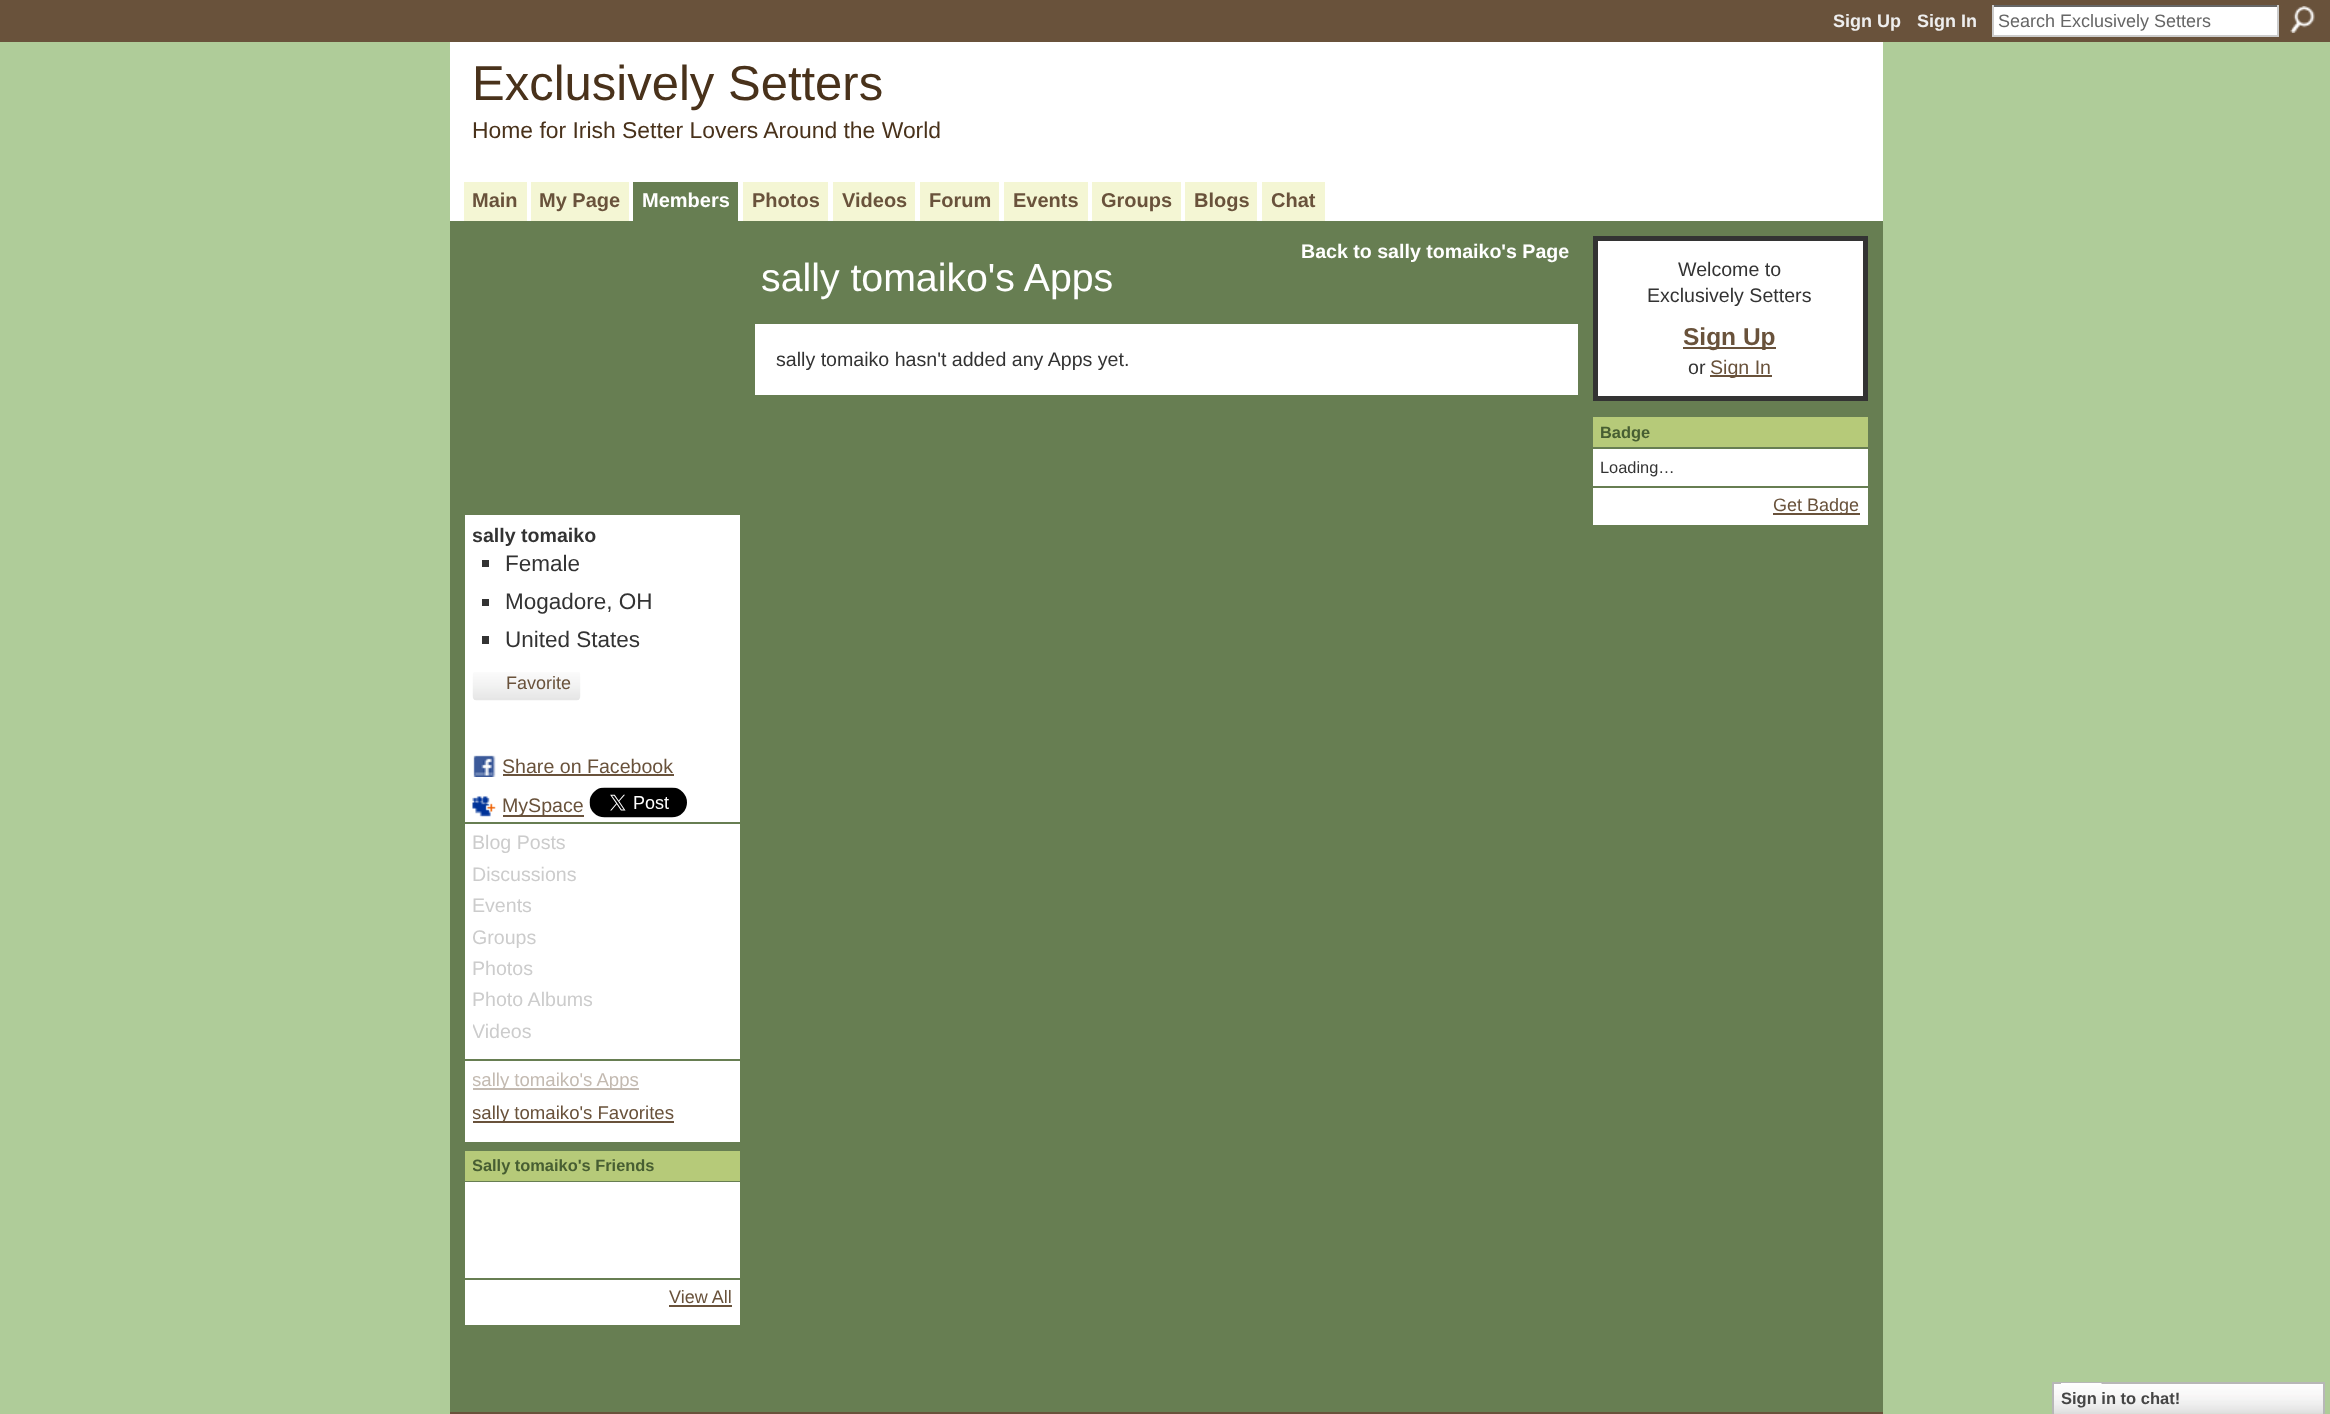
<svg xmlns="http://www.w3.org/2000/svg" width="2330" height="1414">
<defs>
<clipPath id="clip1"><rect x="473" y="522" width="259" height="26"/></clipPath>
<clipPath id="clip2"><rect x="473" y="926" width="259" height="24"/></clipPath>
<clipPath id="clip3"><rect x="473" y="1020" width="259" height="24"/></clipPath>
<clipPath id="clip4"><rect x="473" y="1068" width="259" height="24"/></clipPath>
<clipPath id="clip5"><rect x="473" y="1101" width="259" height="24"/></clipPath>
<clipPath id="clip6"><rect x="473" y="1155" width="181" height="21"/></clipPath>
<clipPath id="clip7"><rect x="1601" y="422" width="49" height="21"/></clipPath>
</defs>
<rect width="100%" height="100%" fill="#afcc99"/>
<rect width="2330" height="42" fill="#69523b"/>
<text x="1833" y="27" style="font-family:Liberation Sans;font-size:18px;font-weight:bold;fill:#eee">Sign Up</text>
<text x="1917" y="27" style="font-family:Liberation Sans;font-size:18px;font-weight:bold;fill:#eee">Sign In</text>
<rect x="1994" y="7" width="283" height="28" fill="#fff"/>
<rect x="1992" y="5" width="287" height="2" fill="#666"/>
<rect x="2277" y="5" width="2" height="31" fill="#ccc"/>
<rect x="1992" y="35" width="287" height="2" fill="#ccc"/>
<rect x="1992" y="5" width="2" height="31" fill="#ccc"/>
<text x="1998" y="27" style="font-family:Liberation Sans;font-size:18px;fill:#666">Search Exclusively Setters</text>
<image x="2290" y="6" width="25" height="27" href="media/1.png"/>
<rect x="450" y="42" width="1433" height="179" fill="#fff"/>
<text x="472" y="100" style="font-family:Liberation Sans;font-size:49px;fill:#49321b">Exclusively Setters</text>
<text x="472" y="138" style="font-family:Liberation Sans;font-size:22.9px;fill:#49321b">Home for Irish Setter Lovers Around the World</text>
<rect x="464" y="182" width="63" height="39" fill="#f4f6d4"/>
<text x="472" y="207" style="font-family:Liberation Sans;font-size:20px;font-weight:bold;fill:#69523b">Main</text>
<rect x="531" y="182" width="98" height="39" fill="#f4f6d4"/>
<text x="539" y="207" style="font-family:Liberation Sans;font-size:20px;font-weight:bold;fill:#69523b">My Page</text>
<rect x="633" y="182" width="105" height="39" fill="#677e52"/>
<text x="642" y="207" style="font-family:Liberation Sans;font-size:20px;font-weight:bold;fill:#fff">Members</text>
<rect x="743" y="182" width="85" height="39" fill="#f4f6d4"/>
<text x="752" y="207" style="font-family:Liberation Sans;font-size:20px;font-weight:bold;fill:#69523b">Photos</text>
<rect x="833" y="182" width="82" height="39" fill="#f4f6d4"/>
<text x="842" y="207" style="font-family:Liberation Sans;font-size:20px;font-weight:bold;fill:#69523b">Videos</text>
<rect x="920" y="182" width="79" height="39" fill="#f4f6d4"/>
<text x="929" y="207" style="font-family:Liberation Sans;font-size:20px;font-weight:bold;fill:#69523b">Forum</text>
<rect x="1004" y="182" width="84" height="39" fill="#f4f6d4"/>
<text x="1013" y="207" style="font-family:Liberation Sans;font-size:20px;font-weight:bold;fill:#69523b">Events</text>
<rect x="1092" y="182" width="89" height="39" fill="#f4f6d4"/>
<text x="1101" y="207" style="font-family:Liberation Sans;font-size:20px;font-weight:bold;fill:#69523b">Groups</text>
<rect x="1185" y="182" width="72" height="39" fill="#f4f6d4"/>
<text x="1194" y="207" style="font-family:Liberation Sans;font-size:20px;font-weight:bold;fill:#69523b">Blogs</text>
<rect x="1262" y="182" width="63" height="39" fill="#f4f6d4"/>
<text x="1271" y="207" style="font-family:Liberation Sans;font-size:20px;font-weight:bold;fill:#69523b">Chat</text>
<rect x="450" y="221" width="1433" height="1191" fill="#677e52"/>
<text x="1301" y="258" style="font-family:Liberation Sans;font-size:19.6px;font-weight:bold;fill:#fff">Back to sally tomaiko's Page</text>
<text x="761" y="291" style="font-family:Liberation Sans;font-size:39.25px;fill:#fff">sally tomaiko's Apps</text>
<rect x="755" y="324" width="823" height="71" fill="#fff"/>
<text x="776" y="366" style="font-family:Liberation Sans;font-size:19.6px;fill:#333">sally tomaiko hasn't added any Apps yet.</text>
<rect x="465" y="515" width="275" height="307" fill="#fff"/>
<g clip-path="url(#clip1)">
<text x="472" y="542" style="font-family:Liberation Sans;font-size:19.6px;font-weight:bold;fill:#333">sally tomaiko</text>
</g>
<rect x="482" y="560" width="7" height="7" fill="#333"/>
<text x="505" y="571" style="font-family:Liberation Sans;font-size:22.5px;fill:#333">Female</text>
<rect x="482" y="599" width="7" height="7" fill="#333"/>
<text x="505" y="609" style="font-family:Liberation Sans;font-size:22.5px;fill:#333">Mogadore, OH</text>
<rect x="482" y="636" width="7" height="8" fill="#333"/>
<text x="505" y="647" style="font-family:Liberation Sans;font-size:22.5px;fill:#333">United States</text>
<image x="472" y="672" width="109" height="29" href="media/2.png"/>
<text x="506" y="689" style="font-family:Liberation Sans;font-size:18px;fill:#69523b">Favorite</text>
<image x="473" y="755" width="23" height="22" href="media/3.png"/>
<text x="502" y="773" style="font-family:Liberation Sans;font-size:19.6px;fill:#69523b">Share on Facebook</text>
<rect x="503" y="774" width="171" height="2" fill="#69523b"/>
<image x="472" y="796" width="24" height="21" href="media/4.png"/>
<rect x="503" y="815" width="81" height="2" fill="#69523b"/>
<text x="502" y="812" style="font-family:Liberation Sans;font-size:19.6px;fill:#69523b">MySpace</text>
<image x="589" y="787" width="98" height="31" href="media/5.png"/>
<rect x="465" y="824" width="275" height="235" fill="#fff"/>
<text x="472" y="849" style="font-family:Liberation Sans;font-size:19.6px;fill:#ccc">Blog Posts</text>
<text x="472" y="881" style="font-family:Liberation Sans;font-size:19.6px;fill:#ccc">Discussions</text>
<text x="472" y="912" style="font-family:Liberation Sans;font-size:19.6px;fill:#ccc">Events</text>
<g clip-path="url(#clip2)">
<text x="472" y="944" style="font-family:Liberation Sans;font-size:19.6px;fill:#ccc">Groups</text>
</g>
<text x="472" y="975" style="font-family:Liberation Sans;font-size:19.6px;fill:#ccc">Photos</text>
<text x="472" y="1006" style="font-family:Liberation Sans;font-size:19.6px;fill:#ccc">Photo Albums</text>
<g clip-path="url(#clip3)">
<text x="472" y="1038" style="font-family:Liberation Sans;font-size:19.6px;fill:#ccc">Videos</text>
</g>
<rect x="465" y="1061" width="275" height="81" fill="#fff"/>
<rect x="473" y="1088" width="166" height="2" fill="#c3bab1"/>
<g clip-path="url(#clip4)">
<text x="472" y="1086" style="font-family:Liberation Sans;font-size:18.6px;fill:#c3bab1">sally tomaiko's Apps</text>
</g>
<rect x="473" y="1121" width="201" height="2" fill="#69523b"/>
<g clip-path="url(#clip5)">
<text x="472" y="1119" style="font-family:Liberation Sans;font-size:18.6px;fill:#69523b">sally tomaiko's Favorites</text>
</g>
<rect x="465" y="1151" width="275" height="30" fill="#b6ca79"/>
<g clip-path="url(#clip6)">
<text x="472" y="1171" style="font-family:Liberation Sans;font-size:16.4px;font-weight:bold;fill:#475e32">Sally tomaiko's Friends</text>
</g>
<rect x="465" y="1182" width="275" height="96" fill="#fff"/>
<rect x="465" y="1280" width="275" height="45" fill="#fff"/>
<text x="669" y="1303" style="font-family:Liberation Sans;font-size:18px;fill:#69523b">View All</text>
<rect x="669" y="1305" width="63" height="2" fill="#69523b"/>
<rect x="1595.5" y="238.5" width="270" height="160" fill="#fff" stroke="#333" stroke-width="5"/>
<text x="1678" y="276" style="font-family:Liberation Sans;font-size:19.6px;fill:#333">Welcome to</text>
<text x="1647" y="302" style="font-family:Liberation Sans;font-size:19.6px;fill:#333">Exclusively Setters</text>
<rect x="1683" y="347" width="93" height="2" fill="#69523b"/>
<text x="1683" y="345" style="font-family:Liberation Sans;font-size:24.5px;font-weight:bold;fill:#69523b">Sign Up</text>
<text x="1688" y="374" style="font-family:Liberation Sans;font-size:19.6px;fill:#333">or</text>
<rect x="1710" y="375" width="62" height="2" fill="#69523b"/>
<text x="1710" y="374" style="font-family:Liberation Sans;font-size:19.6px;fill:#69523b">Sign In</text>
<rect x="1593" y="417" width="275" height="30" fill="#b6ca79"/>
<g clip-path="url(#clip7)">
<text x="1600" y="438" style="font-family:Liberation Sans;font-size:16.4px;font-weight:bold;fill:#475e32">Badge</text>
</g>
<rect x="1593" y="449" width="275" height="37" fill="#fff"/>
<text x="1600" y="473" style="font-family:Liberation Sans;font-size:16.4px;fill:#333">Loading…</text>
<rect x="1593" y="488" width="275" height="37" fill="#fff"/>
<rect x="1773" y="513" width="87" height="2" fill="#69523b"/>
<text x="1773" y="511" style="font-family:Liberation Sans;font-size:18px;fill:#69523b">Get Badge</text>
<rect x="450" y="1412" width="1433" height="2" fill="#69523b"/>
<image x="2054" y="1384" width="269" height="30" href="media/6.png"/>
<rect x="2053" y="1383" width="271" height="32" fill="none" stroke="#b7b7b7" stroke-width="2"/>
<image x="2061" y="1383" width="41" height="31" href="media/7.png"/>
<text x="2061" y="1404" style="font-family:Liberation Sans;font-size:16.5px;font-weight:bold;fill:#454545">Sign in to chat!</text>
</svg>
